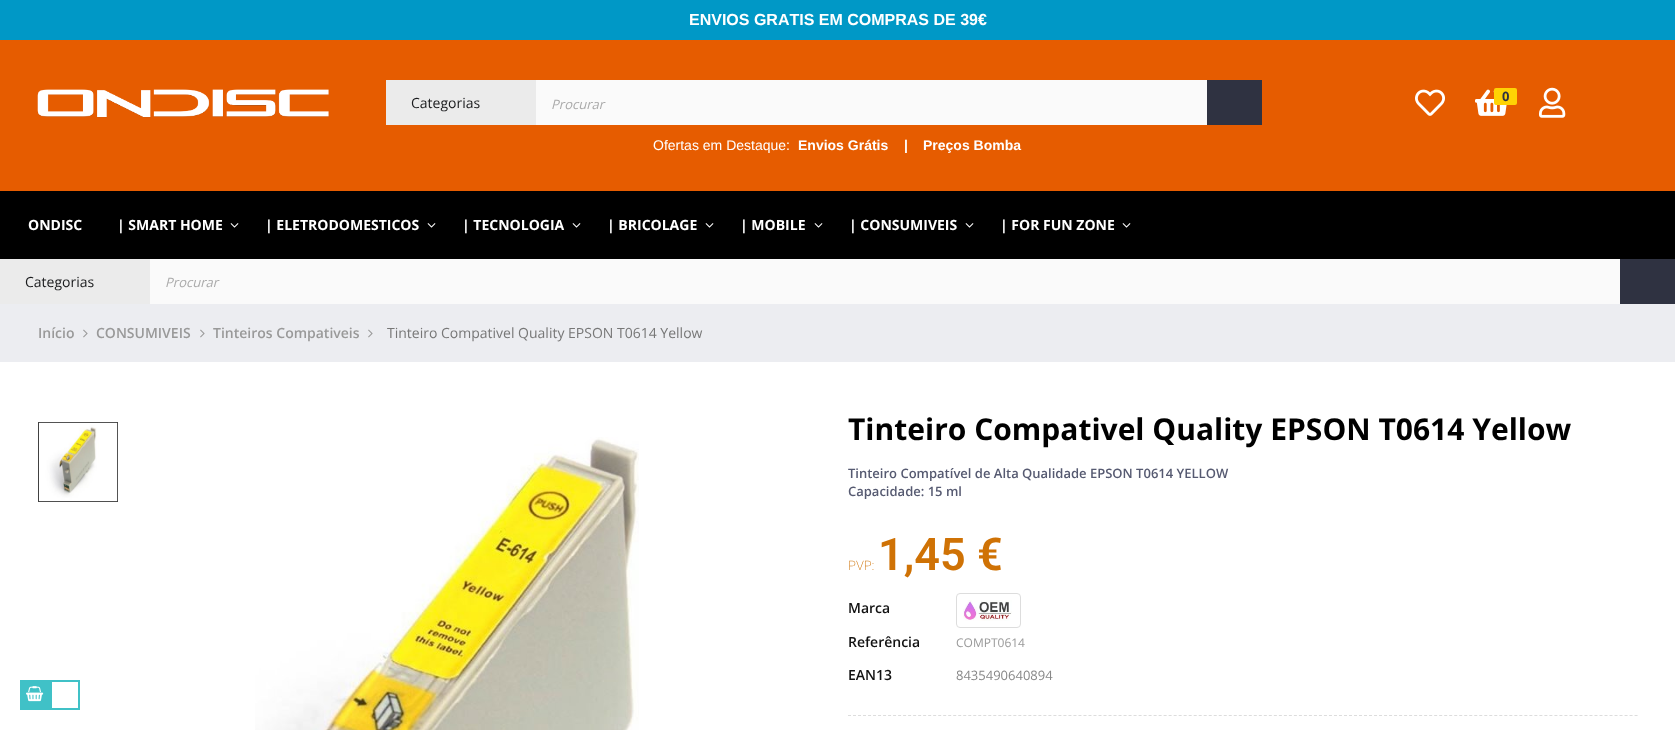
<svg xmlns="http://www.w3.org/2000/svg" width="1675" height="730">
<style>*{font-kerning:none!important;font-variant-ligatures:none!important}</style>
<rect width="100%" height="100%" fill="#fff"/>
<rect width="1675" height="40" fill="#0098c6"/>
<text x="689" y="25" style="font-family:Liberation Sans;font-size:16px;font-weight:bold;fill:#fff">ENVIOS GRATIS EM COMPRAS DE 39€</text>
<rect y="40" width="1675" height="151" fill="#e65c00"/>
<image x="37" y="89" width="292" height="29" href="media/1.png"/>
<rect x="386" y="80" width="150" height="45" fill="#ebebeb"/>
<text x="411" y="108" style="font-family:Open Sans;font-size:14px;fill:#191a1c">Categorias</text>
<rect x="536" y="80" width="671" height="45" fill="#fafafa"/>
<text x="551" y="109" style="font-family:Open Sans;font-size:13px;font-style:italic;fill:#aaa">Procurar</text>
<rect x="1207" y="80" width="55" height="45" fill="#2f3241"/>
<image x="1415" y="89" width="30" height="27" href="media/2.png"/>
<image x="1475" y="89" width="32" height="27" href="media/3.png"/>
<rect x="1494" y="88" width="23" height="17" rx="2" fill="#ffd304"/>
<text x="1502" y="101" style="font-family:Open Sans;font-size:13px;font-weight:bold;fill:#2f3241">0</text>
<image x="1539" y="87" width="27" height="31" href="media/4.png"/>
<text x="653" y="150" style="font-family:Liberation Sans;font-size:14px;fill:#fff">Ofertas em Destaque:</text>
<text x="798" y="150" style="font-family:Liberation Sans;font-size:14px;font-weight:bold;fill:#fff">Envios Grátis</text>
<text x="904" y="150" style="font-family:Liberation Sans;font-size:14px;font-weight:bold;fill:#fff">|</text>
<text x="923" y="150" style="font-family:Liberation Sans;font-size:14px;font-weight:bold;fill:#fff">Preços Bomba</text>
<rect y="191" width="1675" height="68" fill="#000"/>
<text x="28" y="230" style="font-family:Open Sans;font-size:14px;font-weight:bold;fill:#fff">ONDISC</text>
<text x="117" y="230" style="font-family:Open Sans;font-size:14px;font-weight:bold;fill:#fff">| SMART HOME</text>
<image x="230" y="223" width="9" height="5" href="media/5.png"/>
<text x="265" y="230" style="font-family:Open Sans;font-size:14px;font-weight:bold;fill:#fff">| ELETRODOMESTICOS</text>
<image x="427" y="223" width="9" height="5" href="media/5.png"/>
<text x="462" y="230" style="font-family:Open Sans;font-size:14px;font-weight:bold;fill:#fff">| TECNOLOGIA</text>
<image x="572" y="223" width="9" height="5" href="media/5.png"/>
<text x="607" y="230" style="font-family:Open Sans;font-size:14px;font-weight:bold;fill:#fff">| BRICOLAGE</text>
<image x="705" y="223" width="9" height="5" href="media/5.png"/>
<text x="740" y="230" style="font-family:Open Sans;font-size:14px;font-weight:bold;fill:#fff">| MOBILE</text>
<image x="814" y="223" width="9" height="5" href="media/5.png"/>
<text x="849" y="230" style="font-family:Open Sans;font-size:14px;font-weight:bold;fill:#fff">| CONSUMIVEIS</text>
<image x="965" y="223" width="9" height="5" href="media/5.png"/>
<text x="1000" y="230" style="font-family:Open Sans;font-size:14px;font-weight:bold;fill:#fff">| FOR FUN ZONE</text>
<image x="1122" y="223" width="9" height="5" href="media/5.png"/>
<rect y="259" width="150" height="45" fill="#ebebeb"/>
<text x="25" y="287" style="font-family:Open Sans;font-size:14px;fill:#191a1c">Categorias</text>
<rect x="150" y="259" width="1470" height="45" fill="#fafafa"/>
<text x="165" y="287" style="font-family:Open Sans;font-size:13px;font-style:italic;fill:#aaa">Procurar</text>
<rect x="1620" y="259" width="55" height="45" fill="#2f3241"/>
<rect y="304" width="1675" height="58" fill="#ecedf1"/>
<text x="38" y="338" style="font-family:Open Sans;font-size:14px;font-weight:600;fill:#999">Início</text>
<image x="83" y="329" width="5" height="9" href="media/6.png"/>
<text x="96" y="338" style="font-family:Open Sans;font-size:14px;font-weight:600;fill:#999">CONSUMIVEIS</text>
<image x="200" y="329" width="5" height="9" href="media/6.png"/>
<text x="213" y="338" style="font-family:Open Sans;font-size:14px;font-weight:600;fill:#999">Tinteiros Compativeis</text>
<image x="368" y="329" width="5" height="9" href="media/6.png"/>
<text x="387" y="338" style="font-family:Open Sans;font-size:14px;fill:#777">Tinteiro Compativel Quality EPSON T0614 Yellow</text>
<rect x="38.5" y="422.5" width="79" height="79" fill="none" stroke="#414141"/>
<image x="39" y="422" width="79" height="80" href="media/7.png"/>
<image x="255" y="437" width="384" height="293" href="media/8.png"/>
<text x="848" y="440" style="font-family:Open Sans;font-size:30px;font-weight:bold;fill:#000">Tinteiro Compativel Quality EPSON T0614 Yellow</text>
<text x="848" y="478" style="font-family:Open Sans;font-size:13px;font-weight:600;fill:#565a71">Tinteiro Compatível de Alta Qualidade EPSON T0614 YELLOW</text>
<text x="848" y="496" style="font-family:Open Sans;font-size:13px;font-weight:600;fill:#565a71">Capacidade: 15 ml</text>
<text x="848" y="570" style="font-family:Roboto;font-size:13px;font-weight:200;fill:#cf7205">PVP:</text>
<text x="878" y="570" style="font-family:Roboto;font-size:45px;font-weight:600;fill:#cf7205">1,45 €</text>
<rect x="956.5" y="593.5" width="64" height="34" rx="3.5" fill="none" stroke="#ddd"/>
<text x="848" y="613" style="font-family:Open Sans;font-size:14px;font-weight:600;fill:#121212">Marca</text>
<image x="963" y="600" width="49" height="21" href="media/9.png"/>
<text x="848" y="647" style="font-family:Open Sans;font-size:14px;font-weight:600;fill:#121212">Referência</text>
<text x="956" y="647" style="font-family:Open Sans;font-size:12px;fill:#999">COMPT0614</text>
<text x="848" y="680" style="font-family:Open Sans;font-size:14px;font-weight:600;fill:#121212">EAN13</text>
<text x="956" y="680" style="font-family:Open Sans;font-size:13px;fill:#878787">8435490640894</text>
<path d="M848 715.5h790" fill="none" stroke="#ddd" stroke-dasharray="3 2.01"/>
<rect x="20" y="680" width="30" height="30" fill="#40c1c7"/>
<image x="26" y="686" width="18" height="16" href="media/10.png"/>
<rect x="51" y="681" width="28" height="28" fill="none" stroke="#40c1c7" stroke-width="2"/>
</svg>
